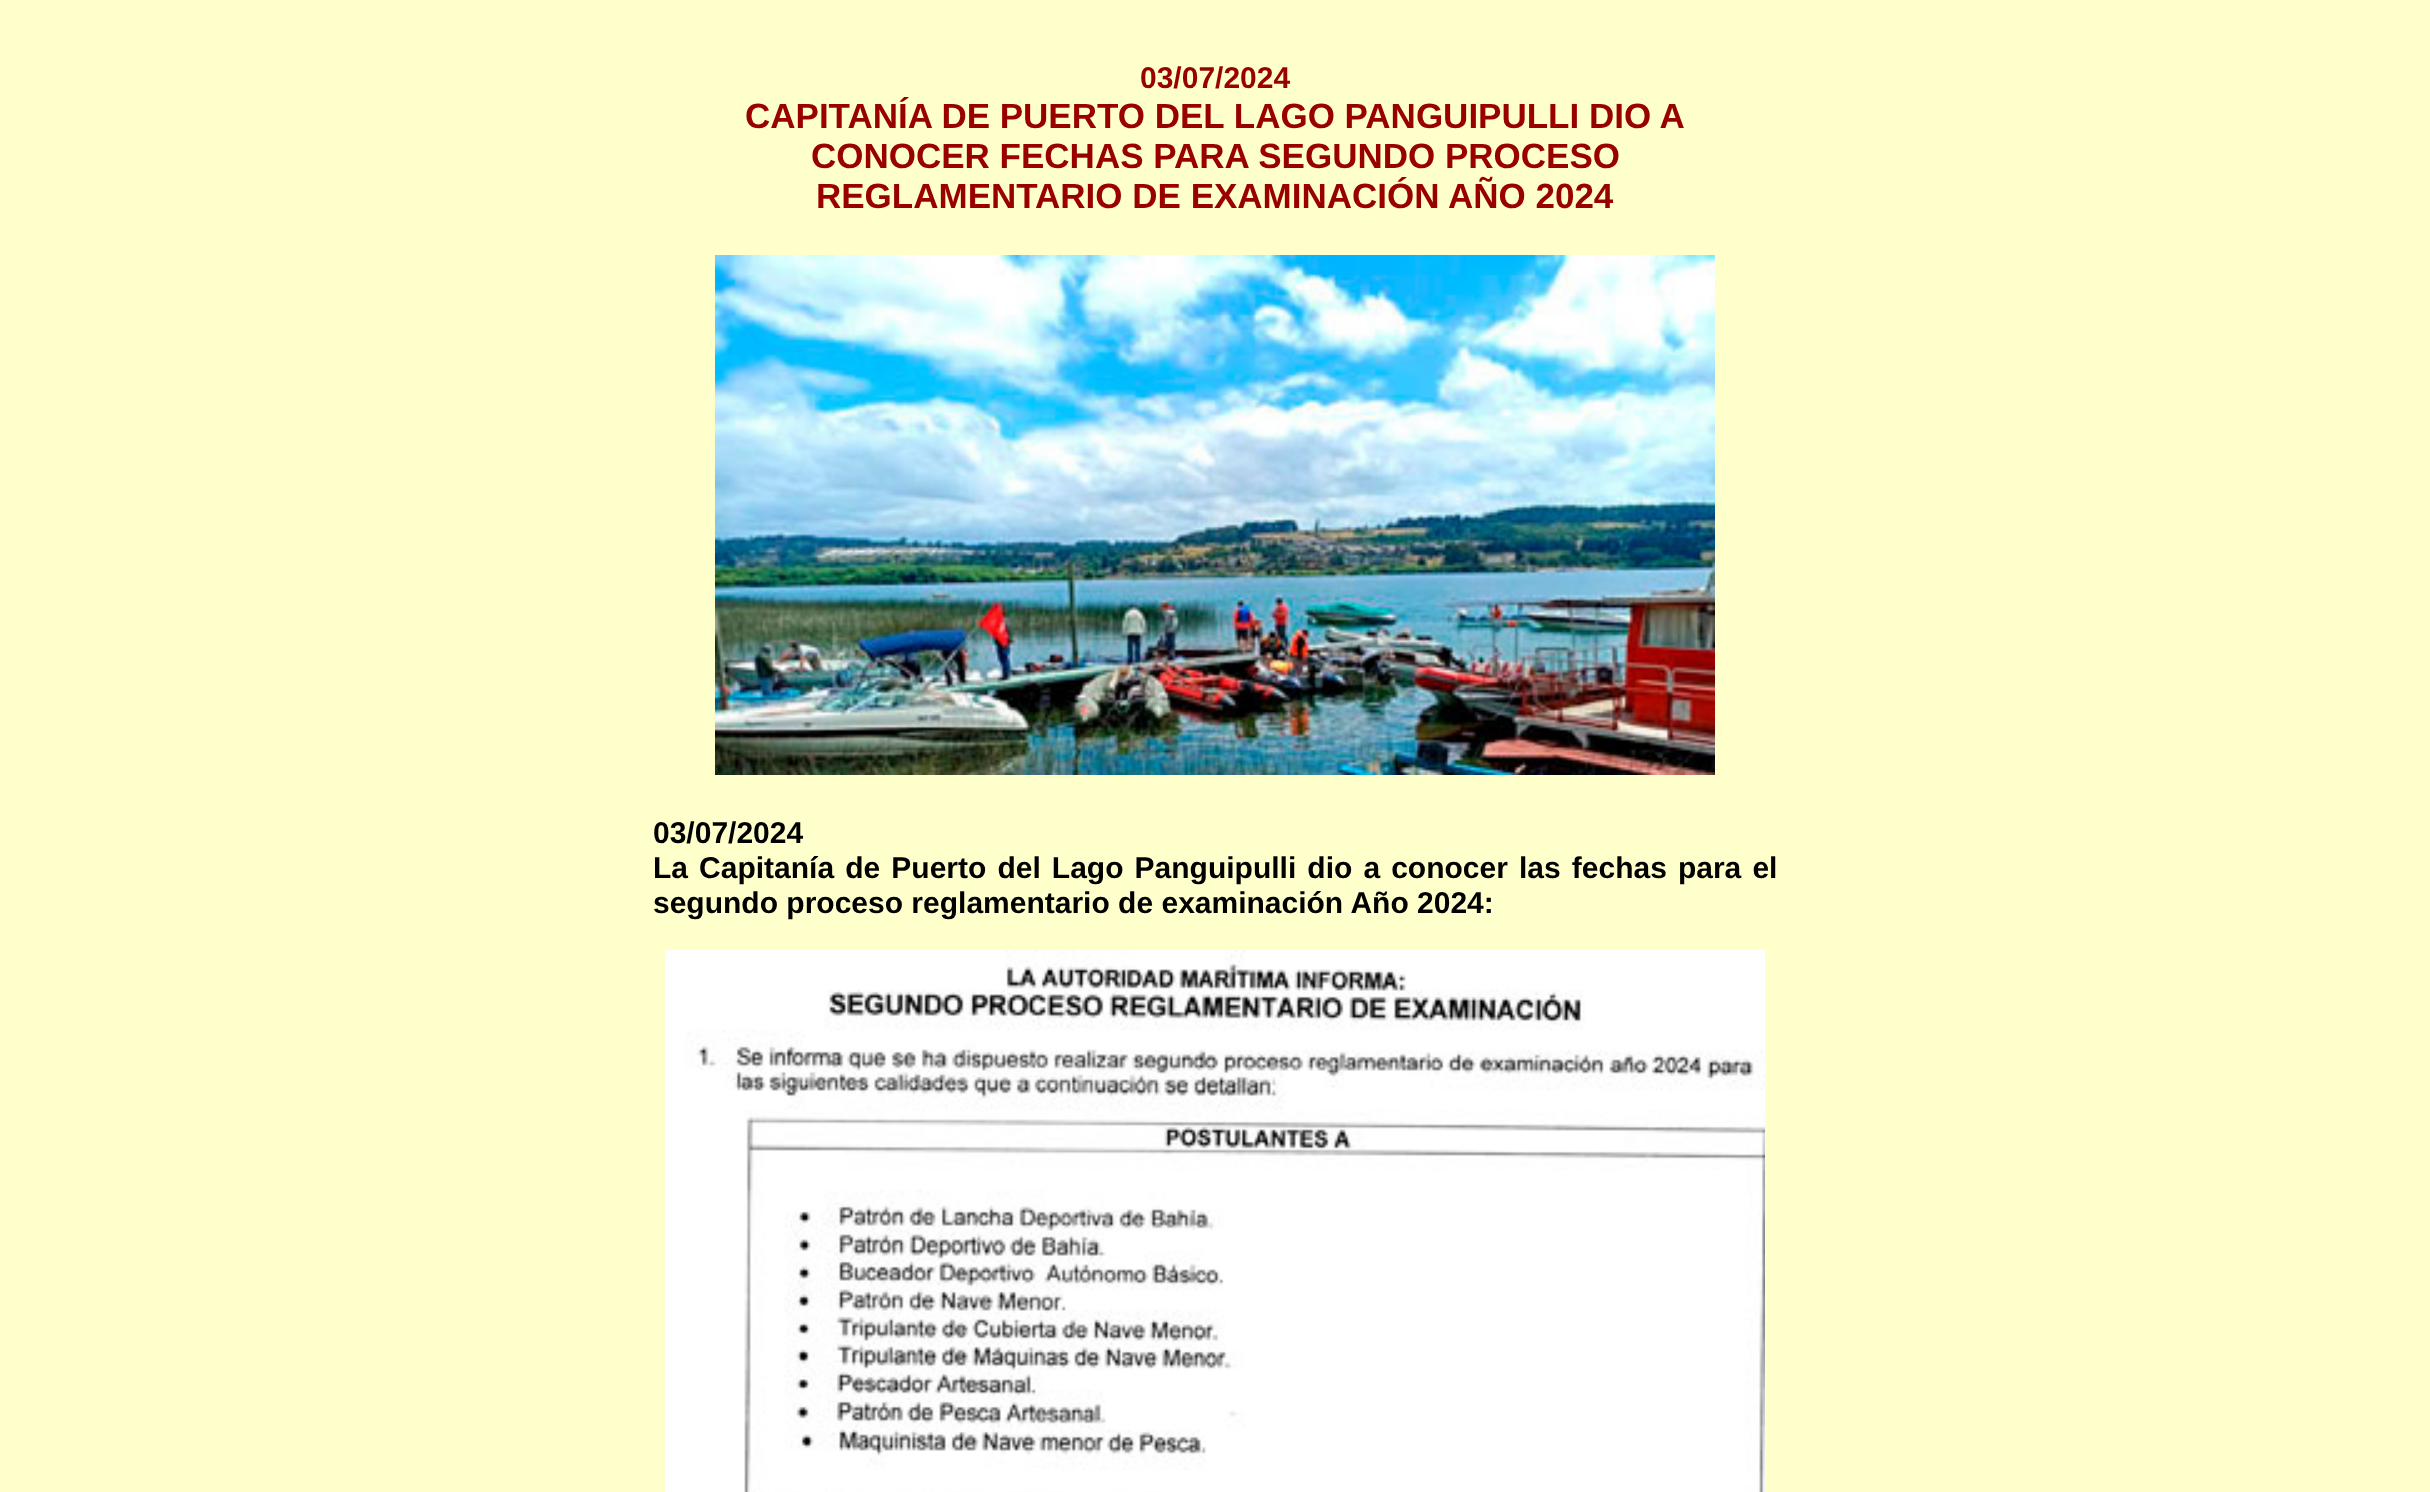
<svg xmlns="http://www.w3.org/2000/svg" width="2430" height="1492">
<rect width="100%" height="100%" fill="#ffc"/>
<text x="1140" y="88" style="font-family:Liberation Sans;font-size:30px;font-weight:bold;fill:#900">03/07/2024</text>
<text x="745" y="128" style="font-family:Liberation Sans;font-size:35px;font-weight:bold;fill:#900">CAPITANÍA DE PUERTO DEL LAGO PANGUIPULLI DIO A</text>
<text x="811" y="168" style="font-family:Liberation Sans;font-size:35px;font-weight:bold;fill:#900">CONOCER FECHAS PARA SEGUNDO PROCESO</text>
<text x="816" y="208" style="font-family:Liberation Sans;font-size:35px;font-weight:bold;fill:#900">REGLAMENTARIO DE EXAMINACIÓN AÑO 2024</text>
<image x="715" y="255" width="1000" height="520" href="media/1.png"/>
<text x="653" y="843" style="font-family:Liberation Sans;font-size:30px;font-weight:bold;fill:#000">03/07/2024</text>
<text x="653" y="878" word-spacing="2.75" style="font-family:Liberation Sans;font-size:30px;font-weight:bold;fill:#000">La Capitanía de Puerto del Lago Panguipulli dio a conocer</text>
<text x="1519" y="878" word-spacing="2.75" style="font-family:Liberation Sans;font-size:30px;font-weight:bold;fill:#000">las fechas para el</text>
<text x="653" y="913" style="font-family:Liberation Sans;font-size:30px;font-weight:bold;fill:#000">segundo proceso reglamentario de examinación Año 2024:</text>
<image x="665" y="950" width="1100" height="542" href="media/2.png"/>
</svg>
